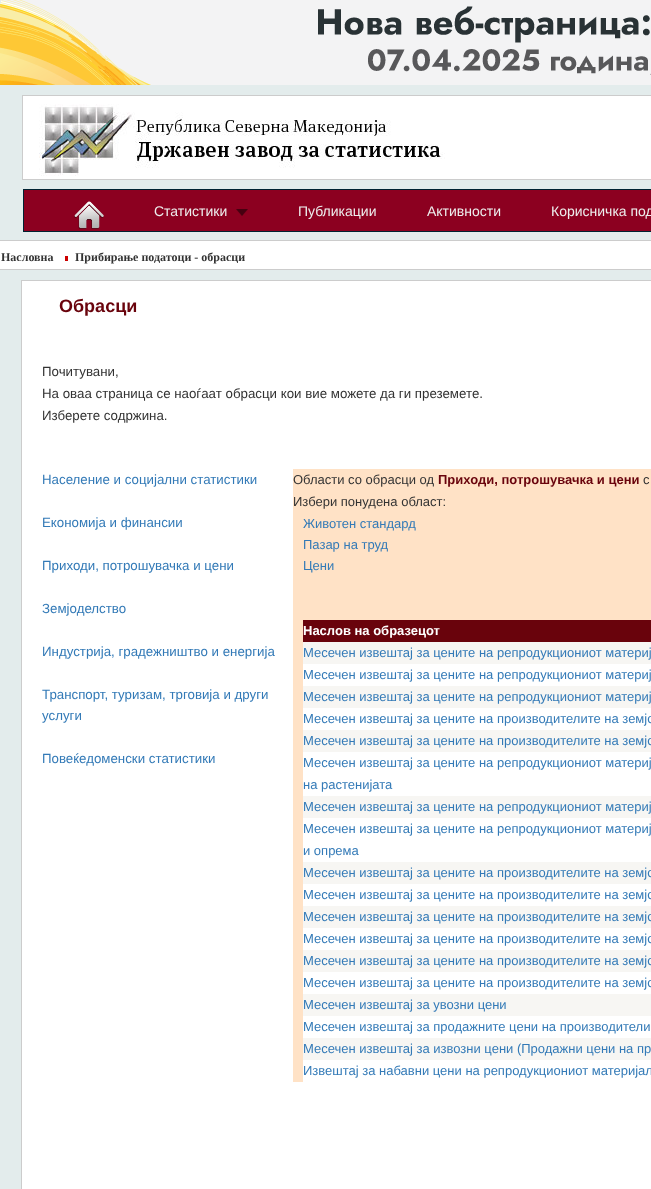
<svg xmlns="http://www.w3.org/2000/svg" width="651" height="1189">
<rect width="100%" height="100%" fill="#e3ecec"/>
<image x="0" y="0" width="651" height="85" href="media/1.png"/>
<rect x="23" y="96" width="628" height="83" fill="#fff"/>
<image x="39" y="104" width="406" height="72" href="media/2.png"/>
<rect x="22.5" y="95.5" width="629" height="84" fill="none" stroke="#ccc"/>
<rect x="23.5" y="189.5" width="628" height="42" fill="#8c0020" stroke="#002232"/>
<image x="74" y="201" width="30" height="28" href="media/3.png"/>
<image x="236" y="209" width="12" height="7" href="media/4.png"/>
<text x="154" y="216" style="font-family:Liberation Sans;font-size:14px;fill:#eee">Статистики</text>
<text x="298" y="216" style="font-family:Liberation Sans;font-size:14px;fill:#eee">Публикации</text>
<text x="427" y="216" style="font-family:Liberation Sans;font-size:14px;fill:#eee">Активности</text>
<text x="551" y="216" style="font-family:Liberation Sans;font-size:14px;fill:#eee">Корисничка под</text>
<rect x="-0.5" y="240.5" width="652" height="29" fill="#fff" stroke="#ccc"/>
<text x="1" y="261" style="font-family:Liberation Serif;font-size:12px;font-weight:bold;fill:#333">Насловна</text>
<text x="75" y="261" style="font-family:Liberation Serif;font-size:12px;font-weight:bold;fill:#333">Прибирање податоци - обрасци</text>
<rect x="65" y="256" width="3" height="5" fill="#c00"/>
<rect x="21.5" y="280.5" width="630" height="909" fill="#fff" stroke="#ccc"/>
<text x="59" y="312" style="font-family:Liberation Sans;font-size:18px;font-weight:bold;fill:#69030c">Обрасци</text>
<text x="42" y="376" style="font-family:Liberation Sans;font-size:13.3px;fill:#333">Почитувани,</text>
<text x="42" y="398" style="font-family:Liberation Sans;font-size:13.3px;fill:#333">На оваа страница се наоѓаат обрасци кои вие можете да ги преземете.</text>
<text x="42" y="420" style="font-family:Liberation Sans;font-size:13.3px;fill:#333">Изберете содржина.</text>
<text x="42" y="484" style="font-family:Liberation Sans;font-size:13.3px;fill:#337ab7">Население и социјални статистики</text>
<text x="42" y="527" style="font-family:Liberation Sans;font-size:13.3px;fill:#337ab7">Економија и финансии</text>
<text x="42" y="570" style="font-family:Liberation Sans;font-size:13.3px;fill:#337ab7">Приходи, потрошувачка и цени</text>
<text x="42" y="613" style="font-family:Liberation Sans;font-size:13.3px;fill:#337ab7">Земјоделство</text>
<text x="42" y="656" style="font-family:Liberation Sans;font-size:13.3px;fill:#337ab7">Индустрија, градежништво и енергија</text>
<text x="42" y="699" style="font-family:Liberation Sans;font-size:13.3px;fill:#337ab7">Транспорт, туризам, трговија и други</text>
<text x="42" y="720" style="font-family:Liberation Sans;font-size:13.3px;fill:#337ab7">услуги</text>
<text x="42" y="763" style="font-family:Liberation Sans;font-size:13.3px;fill:#337ab7">Повеќедоменски статистики</text>
<rect x="293" y="469" width="358" height="613" fill="#ffe2c6"/>
<text x="293" y="484" style="font-family:Liberation Sans;font-size:13px;fill:#333">Области со обрасци од</text>
<text x="438" y="484" style="font-family:Liberation Sans;font-size:13px;font-weight:bold;fill:#69030c">Приходи, потрошувачка и цени</text>
<text x="643" y="484" style="font-family:Liberation Sans;font-size:13px;fill:#333">с</text>
<text x="293" y="506" style="font-family:Liberation Sans;font-size:13px;fill:#333">Избери понудена област:</text>
<text x="303" y="528" style="font-family:Liberation Sans;font-size:13px;fill:#337ab7">Животен стандард</text>
<text x="303" y="549" style="font-family:Liberation Sans;font-size:13px;fill:#337ab7">Пазар на труд</text>
<text x="303" y="570" style="font-family:Liberation Sans;font-size:13px;fill:#337ab7">Цени</text>
<rect x="303" y="620" width="348" height="22" fill="#69030c"/>
<text x="303" y="635" style="font-family:Liberation Sans;font-size:13px;font-weight:bold;fill:#fff">Наслов на образецот</text>
<rect x="303" y="642" width="348" height="22" fill="#f7f6f3"/>
<text x="303" y="657" style="font-family:Liberation Sans;font-size:13px;fill:#337ab7">Месечен извештај за цените на репродукциониот материј</text>
<rect x="303" y="664" width="348" height="22" fill="#fff"/>
<text x="303" y="679" style="font-family:Liberation Sans;font-size:13px;fill:#337ab7">Месечен извештај за цените на репродукциониот материј</text>
<rect x="303" y="686" width="348" height="22" fill="#f7f6f3"/>
<text x="303" y="701" style="font-family:Liberation Sans;font-size:13px;fill:#337ab7">Месечен извештај за цените на репродукциониот материј</text>
<rect x="303" y="708" width="348" height="22" fill="#fff"/>
<text x="303" y="723" style="font-family:Liberation Sans;font-size:13px;fill:#337ab7">Месечен извештај за цените на производителите на земјо</text>
<rect x="303" y="730" width="348" height="22" fill="#f7f6f3"/>
<text x="303" y="745" style="font-family:Liberation Sans;font-size:13px;fill:#337ab7">Месечен извештај за цените на производителите на земјо</text>
<rect x="303" y="752" width="348" height="44" fill="#fff"/>
<text x="303" y="767" style="font-family:Liberation Sans;font-size:13px;fill:#337ab7">Месечен извештај за цените на репродукциониот материј</text>
<text x="303" y="789" style="font-family:Liberation Sans;font-size:13px;fill:#337ab7">на растенијата</text>
<rect x="303" y="796" width="348" height="22" fill="#f7f6f3"/>
<text x="303" y="811" style="font-family:Liberation Sans;font-size:13px;fill:#337ab7">Месечен извештај за цените на репродукциониот материј</text>
<rect x="303" y="818" width="348" height="44" fill="#fff"/>
<text x="303" y="833" style="font-family:Liberation Sans;font-size:13px;fill:#337ab7">Месечен извештај за цените на репродукциониот материј</text>
<text x="303" y="855" style="font-family:Liberation Sans;font-size:13px;fill:#337ab7">и опрема</text>
<rect x="303" y="862" width="348" height="22" fill="#f7f6f3"/>
<text x="303" y="877" style="font-family:Liberation Sans;font-size:13px;fill:#337ab7">Месечен извештај за цените на производителите на земјо</text>
<rect x="303" y="884" width="348" height="22" fill="#fff"/>
<text x="303" y="899" style="font-family:Liberation Sans;font-size:13px;fill:#337ab7">Месечен извештај за цените на производителите на земјо</text>
<rect x="303" y="906" width="348" height="22" fill="#f7f6f3"/>
<text x="303" y="921" style="font-family:Liberation Sans;font-size:13px;fill:#337ab7">Месечен извештај за цените на производителите на земјо</text>
<rect x="303" y="928" width="348" height="22" fill="#fff"/>
<text x="303" y="943" style="font-family:Liberation Sans;font-size:13px;fill:#337ab7">Месечен извештај за цените на производителите на земјо</text>
<rect x="303" y="950" width="348" height="22" fill="#f7f6f3"/>
<text x="303" y="965" style="font-family:Liberation Sans;font-size:13px;fill:#337ab7">Месечен извештај за цените на производителите на земјо</text>
<rect x="303" y="972" width="348" height="22" fill="#fff"/>
<text x="303" y="987" style="font-family:Liberation Sans;font-size:13px;fill:#337ab7">Месечен извештај за цените на производителите на земјо</text>
<rect x="303" y="994" width="348" height="22" fill="#f7f6f3"/>
<text x="303" y="1009" style="font-family:Liberation Sans;font-size:13px;fill:#337ab7">Месечен извештај за увозни цени</text>
<rect x="303" y="1016" width="348" height="22" fill="#fff"/>
<text x="303" y="1031" style="font-family:Liberation Sans;font-size:13px;fill:#337ab7">Месечен извештај за продажните цени на производители</text>
<rect x="303" y="1038" width="348" height="22" fill="#f7f6f3"/>
<text x="303" y="1053" style="font-family:Liberation Sans;font-size:13px;fill:#337ab7">Месечен извештај за извозни цени (Продажни цени на пр</text>
<rect x="303" y="1060" width="348" height="22" fill="#fff"/>
<text x="303" y="1075" style="font-family:Liberation Sans;font-size:13px;fill:#337ab7">Извештај за набавни цени на репродукциониот материјал</text>
</svg>
